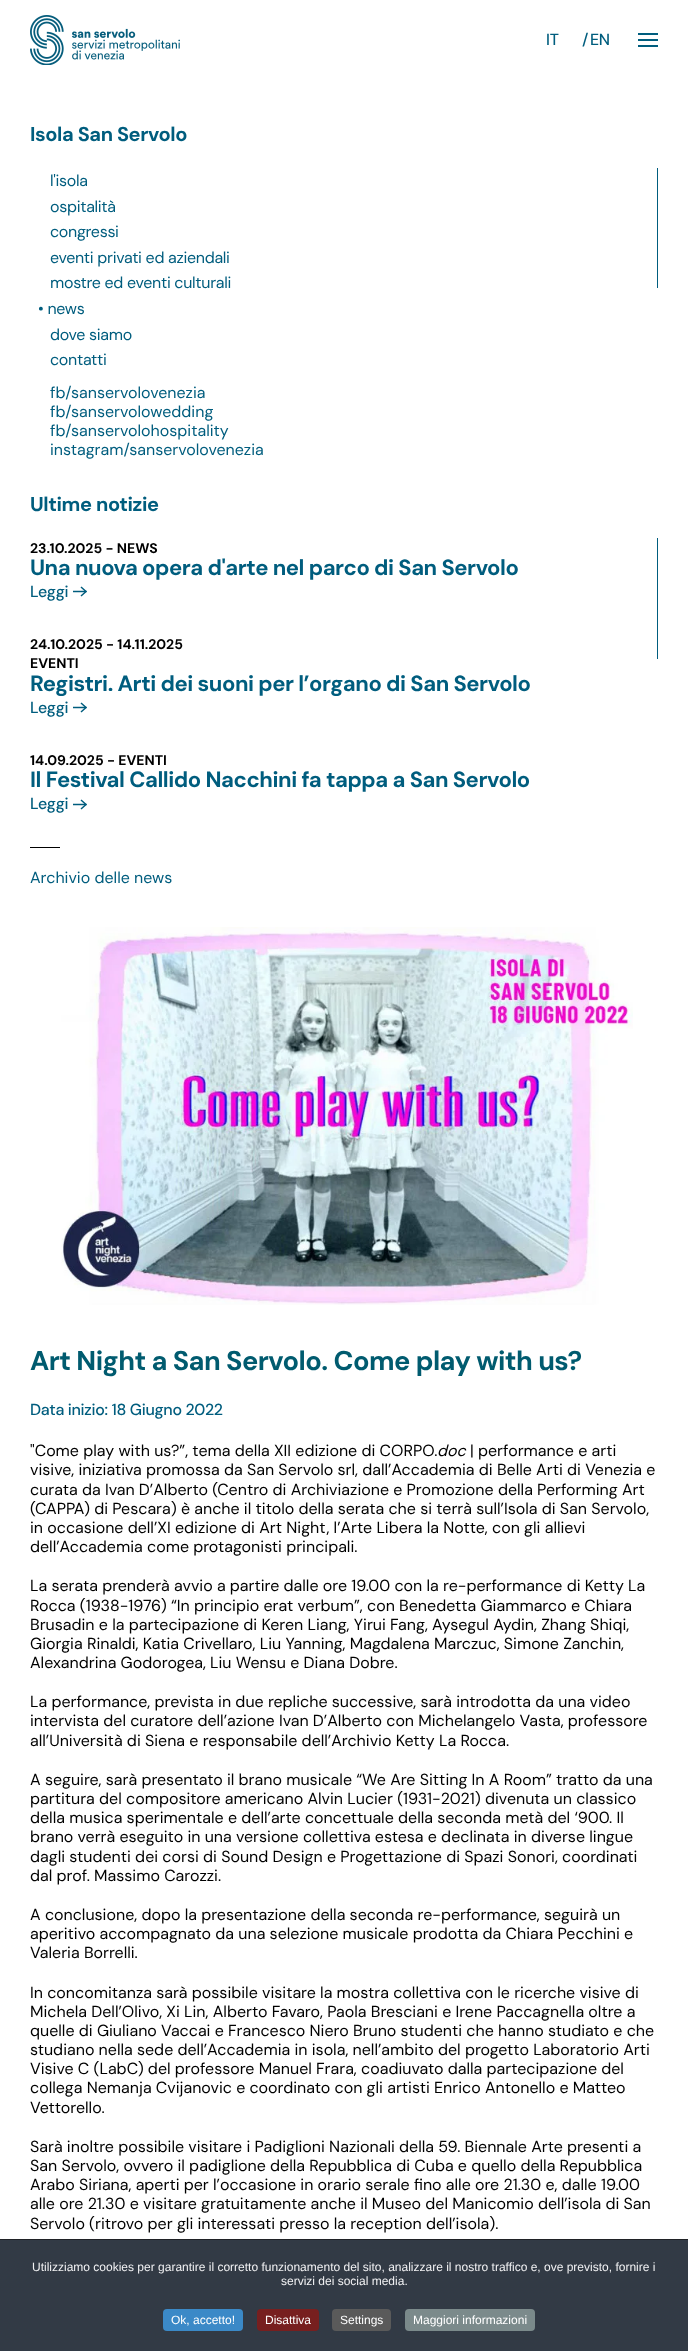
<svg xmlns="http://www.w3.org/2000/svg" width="688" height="2351">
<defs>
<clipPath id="clip1"><rect x="73" y="586" width="15" height="11"/></clipPath>
<clipPath id="clip2"><rect x="73" y="702" width="15" height="11"/></clipPath>
<clipPath id="clip3"><rect x="73" y="799" width="15" height="11"/></clipPath>
</defs>
<rect width="100%" height="100%" fill="#fff"/>
<image x="30" y="15" width="150" height="50" href="media/1.png"/>
<text x="546" y="45" style="font-family:DM Sans;font-size:16px;font-weight:500;letter-spacing:-0.3px;fill:#005d7e">IT</text>
<text x="582" y="45" style="font-family:DM Sans;font-size:16px;font-weight:500;letter-spacing:-0.3px;fill:#005d7e">/</text>
<text x="590" y="45" style="font-family:DM Sans;font-size:16px;font-weight:500;letter-spacing:-0.3px;fill:#005d7e">EN</text>
<rect x="638" y="33" width="20" height="2" fill="#005d7e"/>
<rect x="638" y="39" width="20" height="2" fill="#005d7e"/>
<rect x="638" y="45" width="20" height="2" fill="#005d7e"/>
<text x="30" y="141" style="font-family:DM Sans;font-size:20px;font-weight:bold;letter-spacing:-0.4px;fill:#005d7e">Isola San Servolo</text>
<rect x="657" y="168" width="1" height="120" fill="#005d7e"/>
<text x="50" y="186" style="font-family:DM Sans;font-size:16px;letter-spacing:-0.3px;fill:#005d7e">l'isola</text>
<text x="50" y="212" style="font-family:DM Sans;font-size:16px;letter-spacing:-0.3px;fill:#005d7e">ospitalità</text>
<text x="50" y="237" style="font-family:DM Sans;font-size:16px;letter-spacing:-0.3px;fill:#005d7e">congressi</text>
<text x="50" y="263" style="font-family:DM Sans;font-size:16px;letter-spacing:-0.3px;fill:#005d7e">eventi privati ed aziendali</text>
<text x="50" y="288" style="font-family:DM Sans;font-size:16px;letter-spacing:-0.3px;fill:#005d7e">mostre ed eventi culturali</text>
<text x="38" y="314" style="font-family:DM Sans;font-size:16px;letter-spacing:-0.3px;fill:#005d7e">• news</text>
<text x="50" y="340" style="font-family:DM Sans;font-size:16px;letter-spacing:-0.3px;fill:#005d7e">dove siamo</text>
<text x="50" y="365" style="font-family:DM Sans;font-size:16px;letter-spacing:-0.3px;fill:#005d7e">contatti</text>
<text x="50" y="398" style="font-family:DM Sans;font-size:16px;fill:#005d7e">fb/sanservolovenezia</text>
<text x="50" y="417" style="font-family:DM Sans;font-size:16px;fill:#005d7e">fb/sanservolowedding</text>
<text x="50" y="436" style="font-family:DM Sans;font-size:16px;fill:#005d7e">fb/sanservolohospitality</text>
<text x="50" y="455" style="font-family:DM Sans;font-size:16px;fill:#005d7e">instagram/sanservolovenezia</text>
<text x="30" y="511" style="font-family:DM Sans;font-size:20px;font-weight:bold;letter-spacing:-0.4px;fill:#005d7e">Ultime notizie</text>
<rect x="657" y="538" width="1" height="121" fill="#005d7e"/>
<text x="30" y="553" style="font-family:DM Sans;font-size:14px;font-weight:bold;fill:#000">23.10.2025 - NEWS</text>
<text x="30" y="575" style="font-family:DM Sans;font-size:22px;font-weight:bold;letter-spacing:-0.45px;fill:#005d7e">Una nuova opera d'arte nel parco di San Servolo</text>
<text x="30" y="597" style="font-family:DM Sans;font-size:16px;font-weight:500;letter-spacing:-0.3px;fill:#005d7e">Leggi</text>
<path d="M81 587l5 4.5l-5 4.5" fill="none" stroke="#005d7e" stroke-width="1.5"/>
<g clip-path="url(#clip1)">
<path d="M68 591.5h18.5" fill="none" stroke="#005d7e" stroke-width="1.5"/>
</g>
<text x="30" y="649" style="font-family:DM Sans;font-size:14px;font-weight:bold;fill:#000">24.10.2025 - 14.11.2025</text>
<text x="30" y="668" style="font-family:DM Sans;font-size:14px;font-weight:bold;fill:#000">EVENTI</text>
<text x="30" y="691" style="font-family:DM Sans;font-size:22px;font-weight:bold;letter-spacing:-0.45px;fill:#005d7e">Registri. Arti dei suoni per l’organo di San Servolo</text>
<text x="30" y="713" style="font-family:DM Sans;font-size:16px;font-weight:500;letter-spacing:-0.3px;fill:#005d7e">Leggi</text>
<path d="M81 703l5 4.5l-5 4.5" fill="none" stroke="#005d7e" stroke-width="1.5"/>
<g clip-path="url(#clip2)">
<path d="M68 707.5h18.5" fill="none" stroke="#005d7e" stroke-width="1.5"/>
</g>
<text x="30" y="765" style="font-family:DM Sans;font-size:14px;font-weight:bold;fill:#000">14.09.2025 - EVENTI</text>
<text x="30" y="787" style="font-family:DM Sans;font-size:22px;font-weight:bold;letter-spacing:-0.45px;fill:#005d7e">Il Festival Callido Nacchini fa tappa a San Servolo</text>
<text x="30" y="809" style="font-family:DM Sans;font-size:16px;font-weight:500;letter-spacing:-0.3px;fill:#005d7e">Leggi</text>
<path d="M81 800l5 4.5l-5 4.5" fill="none" stroke="#005d7e" stroke-width="1.5"/>
<g clip-path="url(#clip3)">
<path d="M68 804.5h18.5" fill="none" stroke="#005d7e" stroke-width="1.5"/>
</g>
<rect x="30" y="847" width="30" height="1" fill="#000"/>
<text x="30" y="883" style="font-family:DM Sans;font-size:16px;fill:#005d7e">Archivio delle news</text>
<image x="61" y="927" width="572" height="378" href="media/2.png"/>
<text x="30" y="1370" style="font-family:DM Sans;font-size:27.2px;font-weight:bold;letter-spacing:-0.55px;fill:#005b6f">Art Night a San Servolo. Come play with us?</text>
<text x="30" y="1415" style="font-family:DM Sans;font-size:16px;font-weight:500;letter-spacing:-0.3px;fill:#005d7e">Data inizio: 18 Giugno 2022</text>
<text x="30" y="1456" style="font-family:DM Sans;font-size:16px;fill:#000">"Come play with us?”, tema della XII edizione di CORPO.</text>
<text x="437" y="1456" style="font-family:DM Sans;font-size:16px;font-style:italic;fill:#000">doc</text>
<text x="470" y="1456" style="font-family:DM Sans;font-size:16px;fill:#000">| performance e arti</text>
<text x="30" y="1475" style="font-family:DM Sans;font-size:16px;fill:#000">visive, iniziativa promossa da San Servolo srl, dall’Accademia di Belle Arti di Venezia e</text>
<text x="30" y="1495" style="font-family:DM Sans;font-size:16px;fill:#000">curata da Ivan D’Alberto (Centro di Archiviazione e Promozione della Performing Art</text>
<text x="30" y="1514" style="font-family:DM Sans;font-size:16px;fill:#000">(CAPPA) di Pescara) è anche il titolo della serata che si terrà sull’Isola di San Servolo,</text>
<text x="30" y="1533" style="font-family:DM Sans;font-size:16px;fill:#000">in occasione dell’XI edizione di Art Night, l’Arte Libera la Notte, con gli allievi</text>
<text x="30" y="1552" style="font-family:DM Sans;font-size:16px;fill:#000">dell’Accademia come protagonisti principali.</text>
<text x="30" y="1591" style="font-family:DM Sans;font-size:16px;fill:#000">La serata prenderà avvio a partire dalle ore 19.00 con la re-performance di Ketty La</text>
<text x="30" y="1611" style="font-family:DM Sans;font-size:16px;fill:#000">Rocca (1938-1976) “In principio erat verbum”, con Benedetta Giammarco e Chiara</text>
<text x="30" y="1630" style="font-family:DM Sans;font-size:16px;fill:#000">Brusadin e la partecipazione di Keren Liang, Yirui Fang, Aysegul Aydin, Zhang Shiqi,</text>
<text x="30" y="1649" style="font-family:DM Sans;font-size:16px;fill:#000">Giorgia Rinaldi, Katia Crivellaro, Liu Yanning, Magdalena Marczuc, Simone Zanchin,</text>
<text x="30" y="1668" style="font-family:DM Sans;font-size:16px;fill:#000">Alexandrina Godorogea, Liu Wensu e Diana Dobre.</text>
<text x="30" y="1707" style="font-family:DM Sans;font-size:16px;fill:#000">La performance, prevista in due repliche successive, sarà introdotta da una video</text>
<text x="30" y="1726" style="font-family:DM Sans;font-size:16px;fill:#000">intervista del curatore dell’azione Ivan D’Alberto con Michelangelo Vasta, professore</text>
<text x="30" y="1746" style="font-family:DM Sans;font-size:16px;fill:#000">all’Università di Siena e responsabile dell’Archivio Ketty La Rocca.</text>
<text x="30" y="1785" style="font-family:DM Sans;font-size:16px;fill:#000">A seguire, sarà presentato il brano musicale “We Are Sitting In A Room” tratto da una</text>
<text x="30" y="1804" style="font-family:DM Sans;font-size:16px;fill:#000">partitura del compositore americano Alvin Lucier (1931-2021) divenuta un classico</text>
<text x="30" y="1823" style="font-family:DM Sans;font-size:16px;fill:#000">della musica sperimentale e dell’arte concettuale della seconda metà del ‘900. Il</text>
<text x="30" y="1842" style="font-family:DM Sans;font-size:16px;fill:#000">brano verrà eseguito in una versione collettiva estesa e declinata in diverse lingue</text>
<text x="30" y="1862" style="font-family:DM Sans;font-size:16px;fill:#000">dagli studenti dei corsi di Sound Design e Progettazione di Spazi Sonori, coordinati</text>
<text x="30" y="1881" style="font-family:DM Sans;font-size:16px;fill:#000">dal prof. Massimo Carozzi.</text>
<text x="30" y="1920" style="font-family:DM Sans;font-size:16px;fill:#000">A conclusione, dopo la presentazione della seconda re-performance, seguirà un</text>
<text x="30" y="1939" style="font-family:DM Sans;font-size:16px;fill:#000">aperitivo accompagnato da una selezione musicale prodotta da Chiara Pecchini e</text>
<text x="30" y="1958" style="font-family:DM Sans;font-size:16px;fill:#000">Valeria Borrelli.</text>
<text x="30" y="1998" style="font-family:DM Sans;font-size:16px;fill:#000">In concomitanza sarà possibile visitare la mostra collettiva con le ricerche visive di</text>
<text x="30" y="2017" style="font-family:DM Sans;font-size:16px;fill:#000">Michela Dell’Olivo, Xi Lin, Alberto Favaro, Paola Bresciani e Irene Paccagnella oltre a</text>
<text x="30" y="2036" style="font-family:DM Sans;font-size:16px;fill:#000">quelle di Giuliano Vaccai e Francesco Niero Bruno studenti che hanno studiato e che</text>
<text x="30" y="2055" style="font-family:DM Sans;font-size:16px;fill:#000">studiano nella sede dell’Accademia in isola, nell’ambito del progetto Laboratorio Arti</text>
<text x="30" y="2074" style="font-family:DM Sans;font-size:16px;fill:#000">Visive C (LabC) del professore Manuel Frara, coadiuvato dalla partecipazione del</text>
<text x="30" y="2093" style="font-family:DM Sans;font-size:16px;fill:#000">collega Nemanja Cvijanovic e coordinato con gli artisti Enrico Antonello e Matteo</text>
<text x="30" y="2113" style="font-family:DM Sans;font-size:16px;fill:#000">Vettorello.</text>
<text x="30" y="2152" style="font-family:DM Sans;font-size:16px;fill:#000">Sarà inoltre possibile visitare i Padiglioni Nazionali della 59. Biennale Arte presenti a</text>
<text x="30" y="2171" style="font-family:DM Sans;font-size:16px;fill:#000">San Servolo, ovvero il padiglione della Repubblica di Cuba e quello della Repubblica</text>
<text x="30" y="2190" style="font-family:DM Sans;font-size:16px;fill:#000">Arabo Siriana, aperti per l’occasione in orario serale fino alle ore 21.30 e, dalle 19.00</text>
<text x="30" y="2209" style="font-family:DM Sans;font-size:16px;fill:#000">alle ore 21.30 e visitare gratuitamente anche il Museo del Manicomio dell’isola di San</text>
<text x="30" y="2229" style="font-family:DM Sans;font-size:16px;fill:#000">Servolo (ritrovo per gli interessati presso la reception dell’isola).</text>
<rect y="2240" width="688" height="111" fill="#323a45"/>
<rect y="2239" width="688" height="1" fill="#202226"/>
<text x="32" y="2271" style="font-family:Liberation Sans;font-size:12px;fill:#f1f1f3">Utilizziamo cookies per garantire il corretto funzionamento del sito, analizzare il nostro traffico e, ove previsto, fornire i</text>
<text x="281" y="2285" style="font-family:Liberation Sans;font-size:12px;fill:#f1f1f3">servizi dei social media.</text>
<rect x="163" y="2309" width="80" height="22" rx="4" fill="#3b89c7"/>
<text x="171" y="2324" style="font-family:Liberation Sans;font-size:12px;fill:#fff">Ok, accetto!</text>
<rect x="257" y="2309" width="62" height="22" rx="4" fill="#771f1f"/>
<text x="265" y="2324" style="font-family:Liberation Sans;font-size:12px;fill:#fff">Disattiva</text>
<rect x="332" y="2309" width="59" height="22" rx="4" fill="#5a5a5a"/>
<text x="340" y="2324" style="font-family:Liberation Sans;font-size:12px;fill:#fff">Settings</text>
<rect x="405" y="2309" width="130" height="22" rx="4" fill="#7b8a8b"/>
<text x="413" y="2324" style="font-family:Liberation Sans;font-size:12px;fill:#fff">Maggiori informazioni</text>
</svg>
